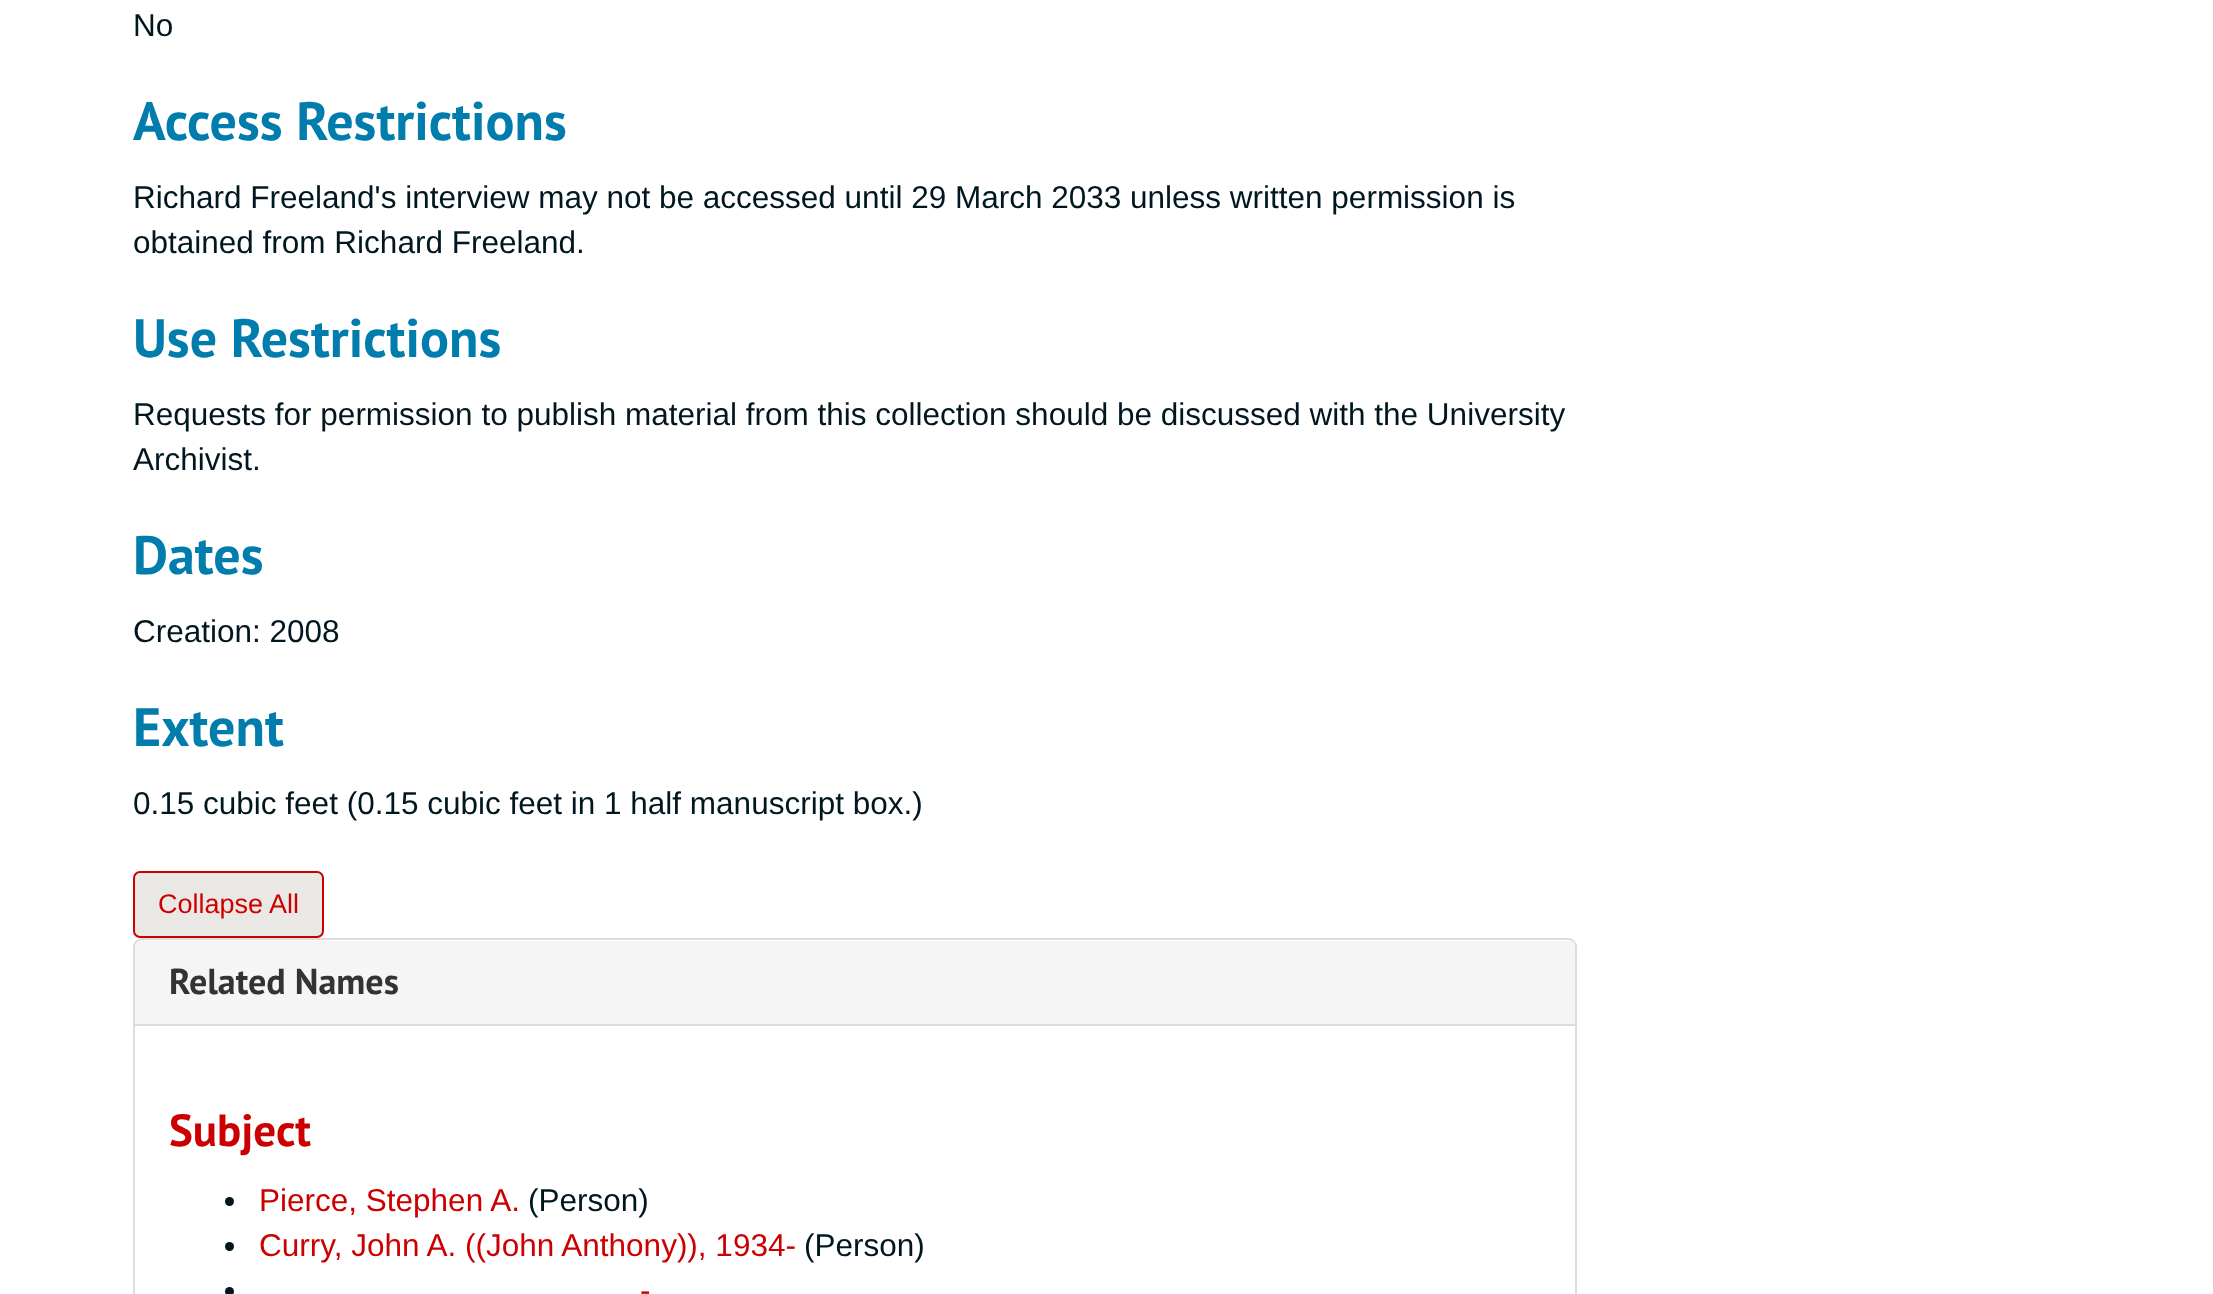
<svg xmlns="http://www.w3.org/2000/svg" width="2213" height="1294">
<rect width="100%" height="100%" fill="#fff"/>
<text x="133" y="36" style="font-family:Liberation Sans;font-size:31.5px;fill:#00171f">No</text>
<text x="133" y="140" style="font-family:PT Sans;font-size:54px;font-weight:bold;fill:#007cad">Access Restrictions</text>
<text x="133" y="208" style="font-family:Liberation Sans;font-size:31.5px;fill:#00171f">Richard Freeland's interview may not be accessed until 29 March 2033 unless written permission is</text>
<text x="133" y="253" style="font-family:Liberation Sans;font-size:31.5px;fill:#00171f">obtained from Richard Freeland.</text>
<text x="133" y="357" style="font-family:PT Sans;font-size:54px;font-weight:bold;fill:#007cad">Use Restrictions</text>
<text x="133" y="425" style="font-family:Liberation Sans;font-size:31.5px;fill:#00171f">Requests for permission to publish material from this collection should be discussed with the University</text>
<text x="133" y="470" style="font-family:Liberation Sans;font-size:31.5px;fill:#00171f">Archivist.</text>
<text x="133" y="574" style="font-family:PT Sans;font-size:54px;font-weight:bold;fill:#007cad">Dates</text>
<text x="133" y="642" style="font-family:Liberation Sans;font-size:31.5px;fill:#00171f">Creation: 2008</text>
<text x="133" y="746" style="font-family:PT Sans;font-size:54px;font-weight:bold;fill:#007cad">Extent</text>
<text x="133" y="814" style="font-family:Liberation Sans;font-size:31.5px;fill:#00171f">0.15 cubic feet (0.15 cubic feet in 1 half manuscript box.)</text>
<rect x="134" y="872" width="189" height="65" rx="6" fill="#e9e8e5" stroke="#c00" stroke-width="2"/>
<text x="158" y="913" style="font-family:Liberation Sans;font-size:27px;fill:#c00">Collapse All</text>
<rect x="134" y="939" width="1442" height="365" rx="8" fill="none" stroke="#ddd" stroke-width="2"/>
<path d="M142 941h1426c4 0 7 3 7 7v76h-1440v-76c0-4 3-7 7-7z" fill="#f5f5f5"/>
<text x="169" y="994" style="font-family:PT Sans;font-size:36px;font-weight:bold;fill:#333">Related Names</text>
<rect x="135" y="1024" width="1440" height="2" fill="#ddd"/>
<text x="169" y="1146" style="font-family:PT Sans;font-size:45px;font-weight:bold;fill:#c00">Subject</text>
<circle cx="229.5" cy="1201.5" r="4.5" fill="#00171f"/>
<text x="259" y="1211" style="font-family:Liberation Sans;font-size:31.5px;fill:#c00">Pierce, Stephen A.</text>
<text x="528" y="1211" style="font-family:Liberation Sans;font-size:31.5px;fill:#00171f">(Person)</text>
<circle cx="229.5" cy="1246.5" r="4.5" fill="#00171f"/>
<text x="259" y="1256" style="font-family:Liberation Sans;font-size:31.5px;fill:#c00">Curry, John A. ((John Anthony)), 1934-</text>
<text x="804" y="1256" style="font-family:Liberation Sans;font-size:31.5px;fill:#00171f">(Person)</text>
<circle cx="229.5" cy="1291.5" r="4.5" fill="#00171f"/>
<text x="640" y="1301" style="font-family:Liberation Sans;font-size:31.5px;fill:#c00">-</text>
</svg>
